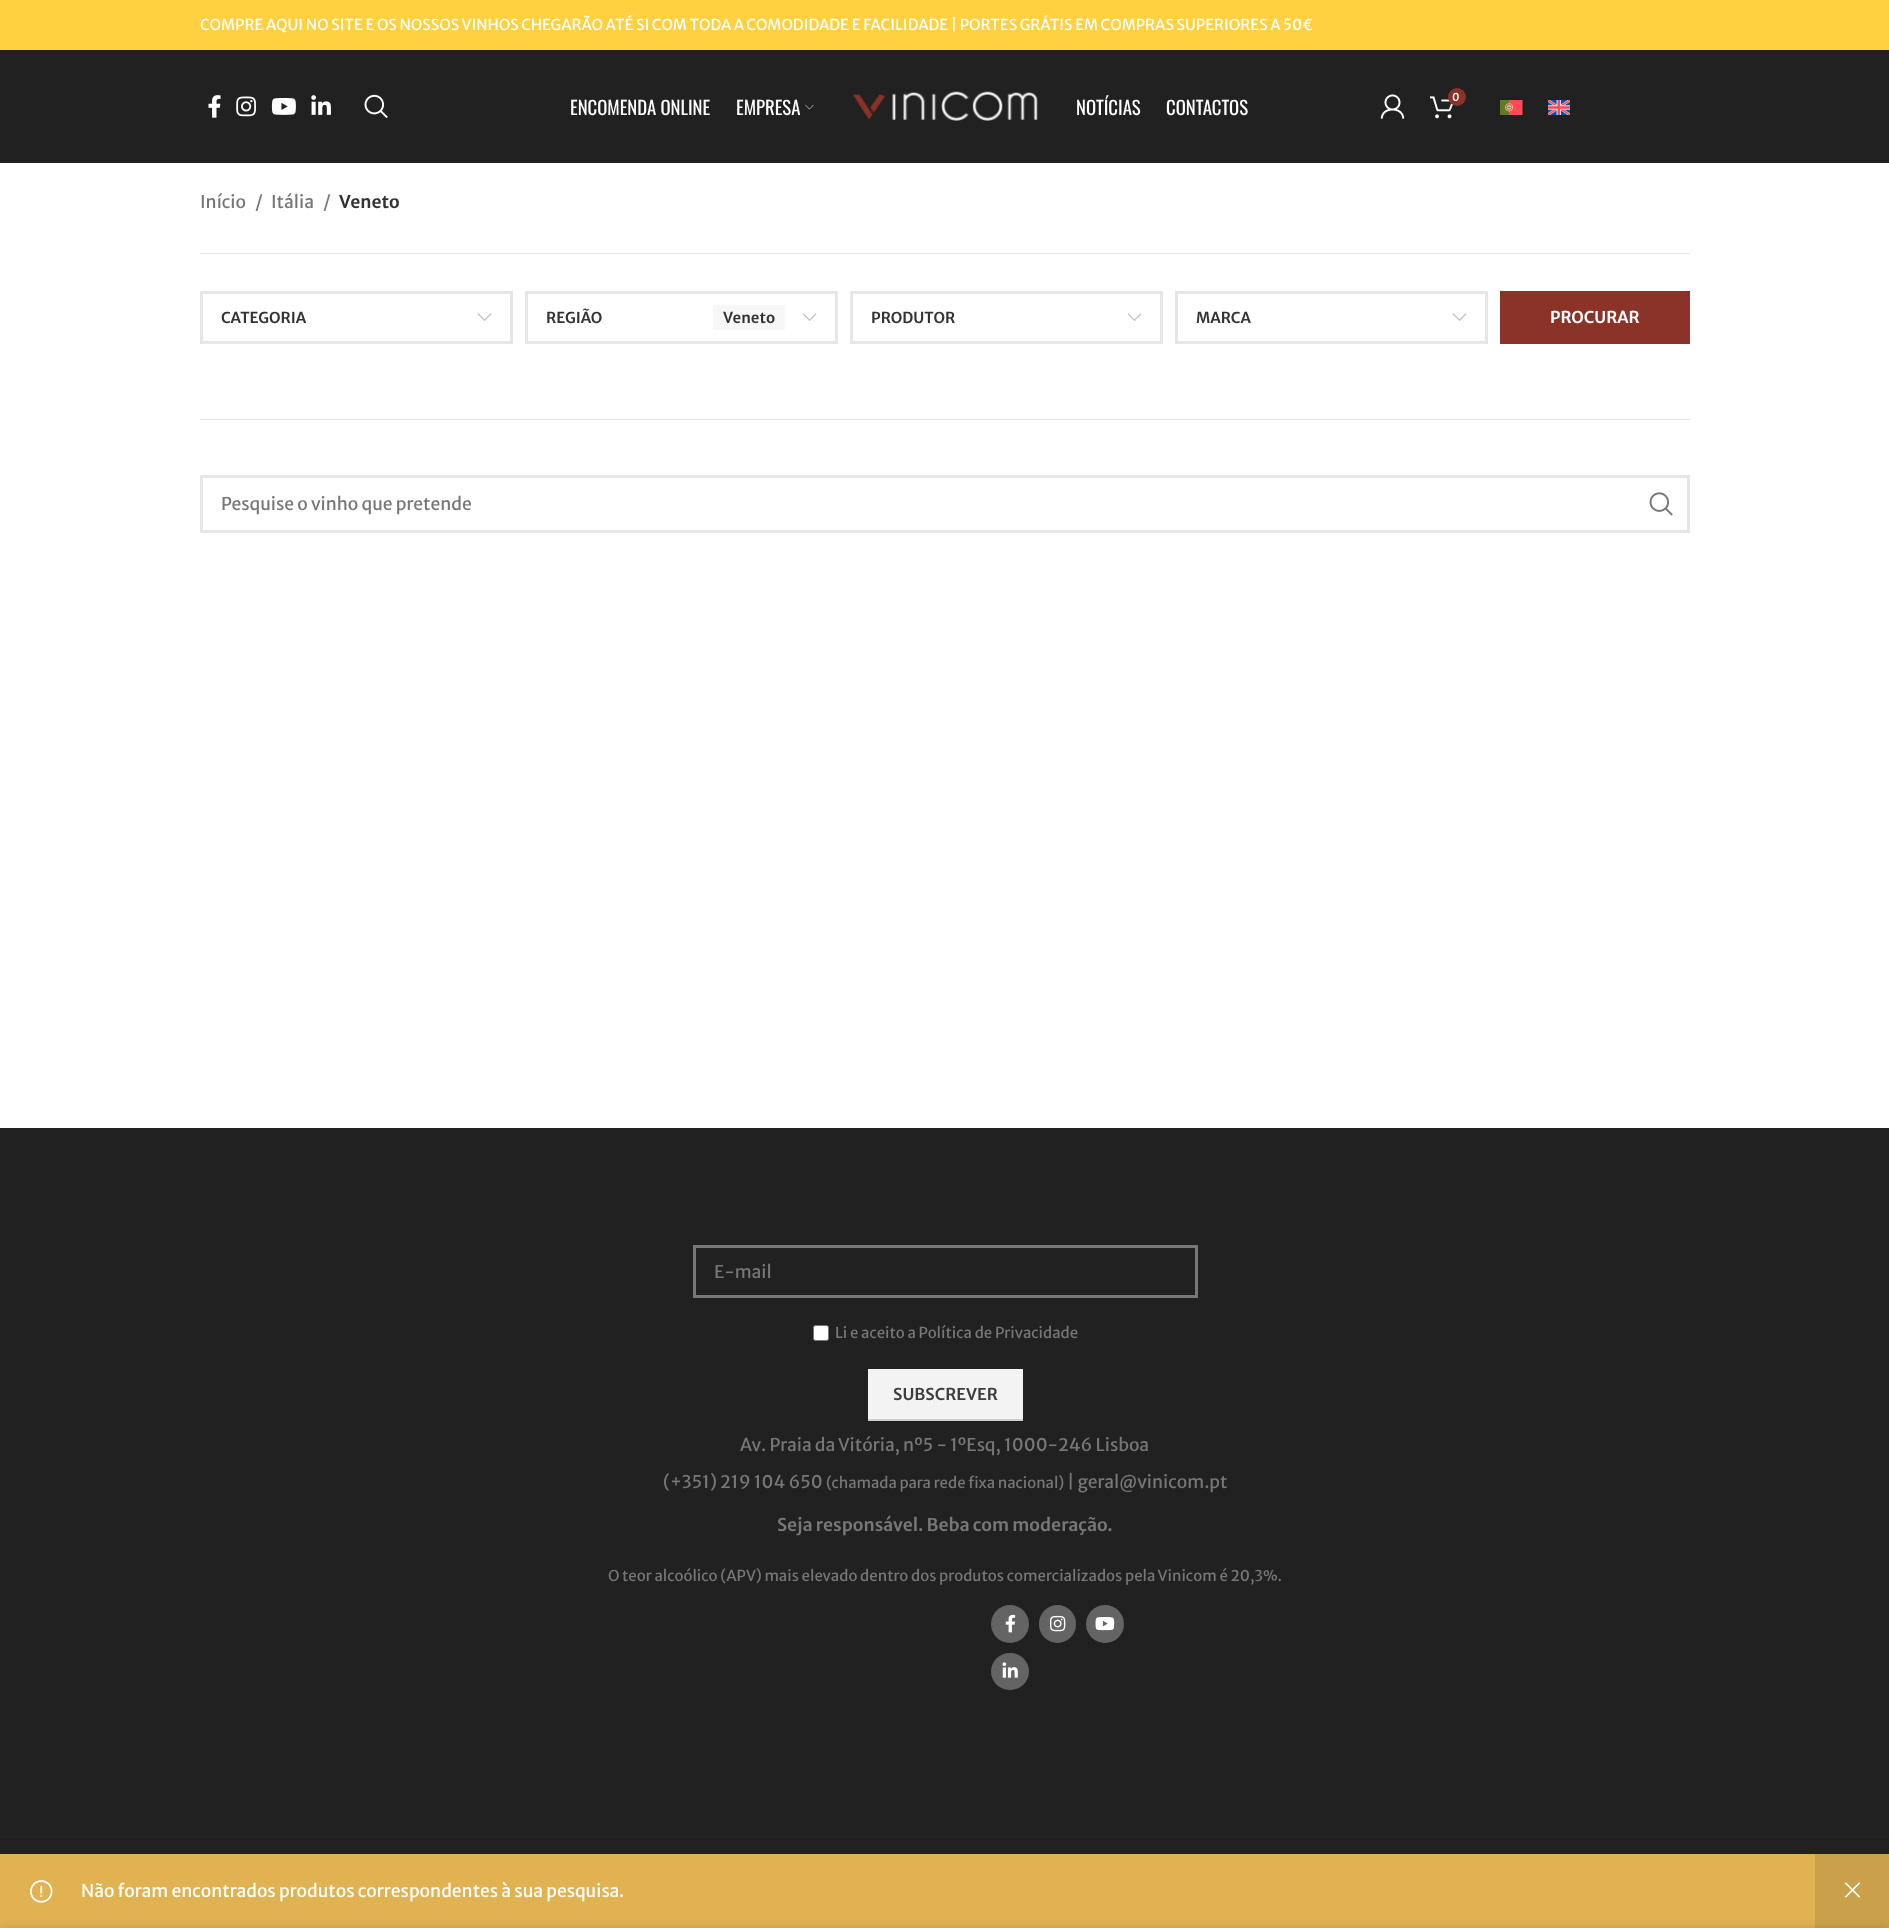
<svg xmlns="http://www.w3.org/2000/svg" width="1889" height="1928">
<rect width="100%" height="100%" fill="#fff"/>
<rect width="1889" height="50" fill="#ffd040"/>
<text x="200" y="30" style="font-family:Merriweather Sans;font-size:15px;fill:#fff">COMPRE AQUI NO SITE E OS NOSSOS VINHOS CHEGARÃO ATÉ SI COM TODA A COMODIDADE E FACILIDADE | PORTES GRÁTIS EM COMPRAS SUPERIORES A 50€</text>
<rect y="50" width="1889" height="113" fill="#212121"/>
<image x="208" y="95" width="13" height="23" href="media/1.png"/>
<image x="236" y="96" width="20" height="21" href="media/2.png"/>
<image x="271" y="98" width="25" height="17" href="media/3.png"/>
<image x="311" y="95" width="20" height="20" href="media/4.png"/>
<image x="364" y="94" width="24" height="25" href="media/5.png"/>
<text x="570" y="115" style="font-family:Oswald;font-size:18.75px;fill:#fff">ENCOMENDA ONLINE</text>
<text x="736" y="115" style="font-family:Oswald;font-size:18.75px;fill:#fff">EMPRESA</text>
<image x="805" y="104" width="9" height="6" href="media/6.png"/>
<image x="853" y="91" width="185" height="30" href="media/7.png"/>
<text x="1076" y="115" style="font-family:Oswald;font-size:18.75px;fill:#fff">NOTÍCIAS</text>
<text x="1166" y="115" style="font-family:Oswald;font-size:18.75px;fill:#fff">CONTACTOS</text>
<image x="1380" y="94" width="25" height="25" href="media/8.png"/>
<image x="1430" y="96" width="23" height="23" href="media/9.png"/>
<circle cx="1457" cy="97" r="9" fill="#8b3329"/>
<text x="1452" y="101" style="font-family:Merriweather Sans;font-size:11px;fill:#fff">0</text>
<image x="1500" y="100" width="23" height="15" href="media/10.png"/>
<image x="1548" y="100" width="22" height="15" href="media/11.png"/>
<text x="200" y="208" style="font-family:Merriweather Sans;font-size:17.5px;fill:#777">Início</text>
<text x="255" y="208" style="font-family:Merriweather Sans;font-size:17.5px;fill:#777">/</text>
<text x="271" y="208" style="font-family:Merriweather Sans;font-size:17.5px;fill:#777">Itália</text>
<text x="323" y="208" style="font-family:Merriweather Sans;font-size:17.5px;fill:#777">/</text>
<text x="339" y="208" style="font-family:Merriweather Sans;font-size:17.5px;font-weight:600;fill:#333">Veneto</text>
<rect x="200" y="253" width="1490" height="1" fill="#e4e4e4"/>
<rect x="200" y="419" width="1490" height="1" fill="#e4e4e4"/>
<rect x="201.5" y="292.5" width="310" height="50" fill="none" stroke="#e6e6e6" stroke-width="3"/>
<text x="221" y="323" style="font-family:Merriweather Sans;font-size:15px;font-weight:600;fill:#333">CATEGORIA</text>
<image x="477" y="313" width="15" height="8" href="media/12.png"/>
<rect x="526.5" y="292.5" width="310" height="50" fill="none" stroke="#e6e6e6" stroke-width="3"/>
<text x="546" y="323" style="font-family:Merriweather Sans;font-size:15px;font-weight:600;fill:#333">REGIÃO</text>
<rect x="713" y="305" width="72" height="25" fill="#f7f7f7"/>
<text x="723" y="323" style="font-family:Merriweather Sans;font-size:15px;font-weight:600;fill:#333">Veneto</text>
<image x="802" y="313" width="15" height="8" href="media/12.png"/>
<rect x="851.5" y="292.5" width="310" height="50" fill="none" stroke="#e6e6e6" stroke-width="3"/>
<text x="871" y="323" style="font-family:Merriweather Sans;font-size:15px;font-weight:600;fill:#333">PRODUTOR</text>
<image x="1127" y="313" width="15" height="8" href="media/12.png"/>
<rect x="1176.5" y="292.5" width="310" height="50" fill="none" stroke="#e6e6e6" stroke-width="3"/>
<text x="1196" y="323" style="font-family:Merriweather Sans;font-size:15px;font-weight:600;fill:#333">MARCA</text>
<image x="1452" y="313" width="15" height="8" href="media/12.png"/>
<rect x="1500" y="291" width="190" height="53" fill="#8b3329"/>
<text x="1550" y="323" style="font-family:Merriweather Sans;font-size:16.25px;font-weight:600;fill:#fff">PROCURAR</text>
<rect x="201.5" y="476.5" width="1487" height="55" fill="none" stroke="#e6e6e6" stroke-width="3"/>
<text x="221" y="510" style="font-family:Merriweather Sans;font-size:17.5px;fill:#777">Pesquise o vinho que pretende</text>
<image x="1649" y="492" width="24" height="24" href="media/13.png"/>
<rect y="1854" width="1815" height="74" fill="#e0b252"/>
<image x="30" y="1880" width="23" height="23" href="media/14.png"/>
<text x="81" y="1897" style="font-family:Merriweather Sans;font-size:17.5px;fill:#fff">Não foram encontrados produtos correspondentes à sua pesquisa.</text>
<rect x="1815" y="1854" width="74" height="74" fill="#caa04a"/>
<image x="1844" y="1882" width="17" height="16" href="media/15.png"/>
<rect y="1128" width="1889" height="726" fill="#212121"/>
<rect x="868" y="1421" width="155" height="1" fill="#1c1c1c"/>
<rect x="694.5" y="1246.5" width="502" height="50" fill="none" stroke="#777" stroke-width="3"/>
<text x="714" y="1278" style="font-family:Merriweather Sans;font-size:17.5px;fill:#777">E-mail</text>
<rect x="813.5" y="1325.5" width="15" height="15" rx="2" fill="#fff" stroke="#767676"/>
<text x="835" y="1338" style="font-family:Merriweather Sans;font-size:15px;fill:#777">Li e aceito a Política de Privacidade</text>
<rect x="868" y="1369" width="155" height="50" fill="#f3f3f3"/>
<rect x="868" y="1419" width="155" height="2" fill="#cfcfcf"/>
<text x="893" y="1400" style="font-family:Merriweather Sans;font-size:16.25px;font-weight:600;fill:#3e3e3e">SUBSCREVER</text>
<text x="740" y="1451" style="font-family:Merriweather Sans;font-size:17.5px;fill:#777">Av. Praia da Vitória, nº5 - 1ºEsq, 1000-246 Lisboa</text>
<text x="663" y="1488" style="font-family:Merriweather Sans;font-size:17.5px;fill:#777">(+351) 219 104 650</text>
<text x="826" y="1488" style="font-family:Merriweather Sans;font-size:15px;fill:#777">(chamada para rede fixa nacional)</text>
<text x="1067" y="1488" style="font-family:Merriweather Sans;font-size:17.5px;fill:#777">| geral@vinicom.pt</text>
<text x="777" y="1531" style="font-family:Merriweather Sans;font-size:17.5px;font-weight:600;fill:#777">Seja responsável. Beba com moderação.</text>
<text x="608" y="1581" style="font-family:Merriweather Sans;font-size:15px;fill:#777">O teor alcoólico (APV) mais elevado dentro dos produtos comercializados pela Vinicom é 20,3%.</text>
<circle cx="1010" cy="1624" r="19" fill="#646464"/>
<image x="1005" y="1614" width="11" height="19" href="media/16.png"/>
<rect x="1039" y="1605" width="37" height="38" rx="18.5" fill="#646464"/>
<image x="1050" y="1615" width="16" height="17" href="media/17.png"/>
<circle cx="1105" cy="1624" r="19" fill="#646464"/>
<image x="1095" y="1617" width="20" height="14" href="media/18.png"/>
<rect x="991" y="1653" width="38" height="37" rx="18.5" fill="#646464"/>
<image x="1002" y="1662" width="16" height="16" href="media/19.png"/>
<rect y="1839" width="1889" height="1" fill="#1e1e1e"/>
<rect y="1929" width="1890" height="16" fill="#00000024" filter="blur(5.5px)"/>
</svg>
